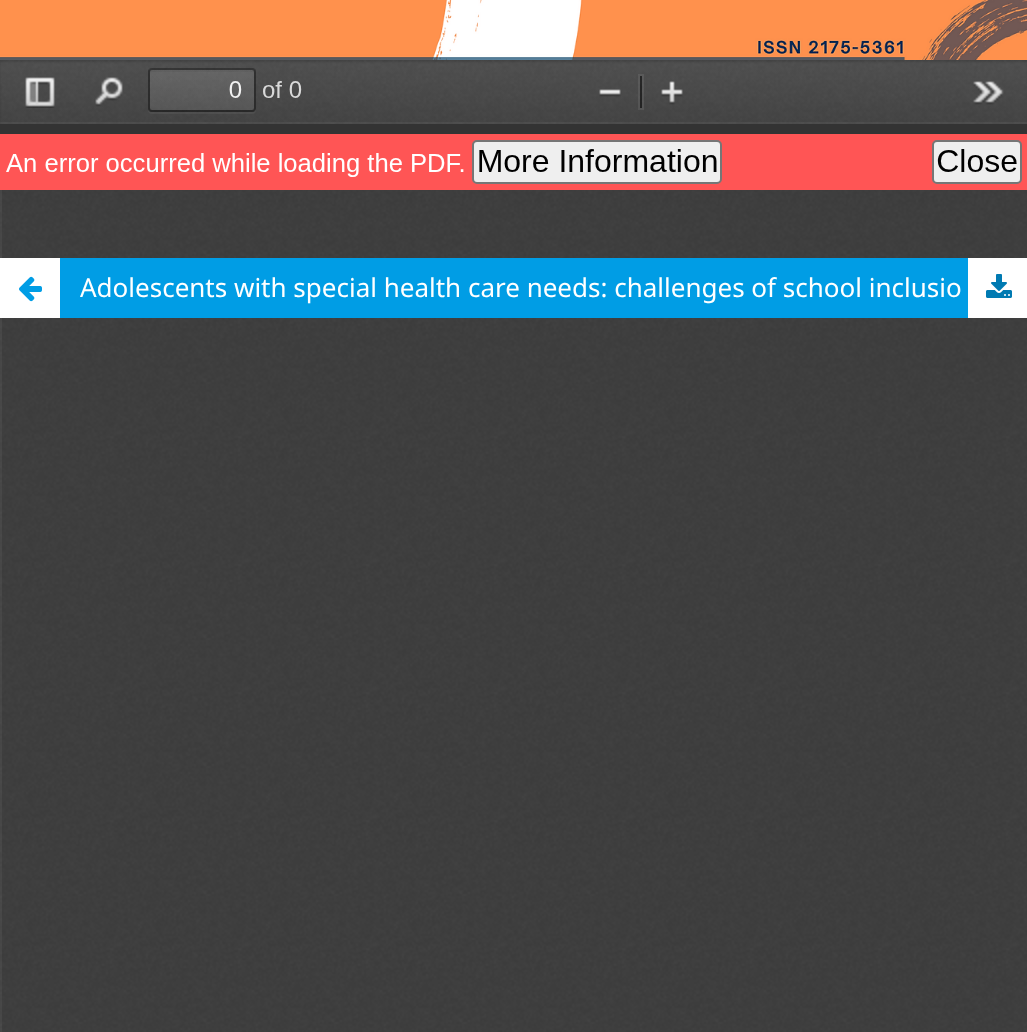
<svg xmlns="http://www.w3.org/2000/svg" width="1027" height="1032">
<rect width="100%" height="100%" fill="#fff"/>
<image x="0" y="0" width="1027" height="60" href="media/1.png"/>
<image x="0" y="60" width="1027" height="972" href="media/2.png"/>
<rect x="60" y="258" width="908" height="60" fill="#009de5"/>
<rect y="258" width="60" height="60" fill="#fff"/>
<image x="19" y="276" width="23" height="26" href="media/3.png"/>
<text x="80" y="297" style="font-family:Noto Sans;font-size:26px;fill:#fff">Adolescents with special health care needs: challenges of school inclusio</text>
<rect x="968" y="258" width="59" height="60" fill="#fff"/>
<image x="986" y="274" width="26" height="24" href="media/4.png"/>
</svg>
